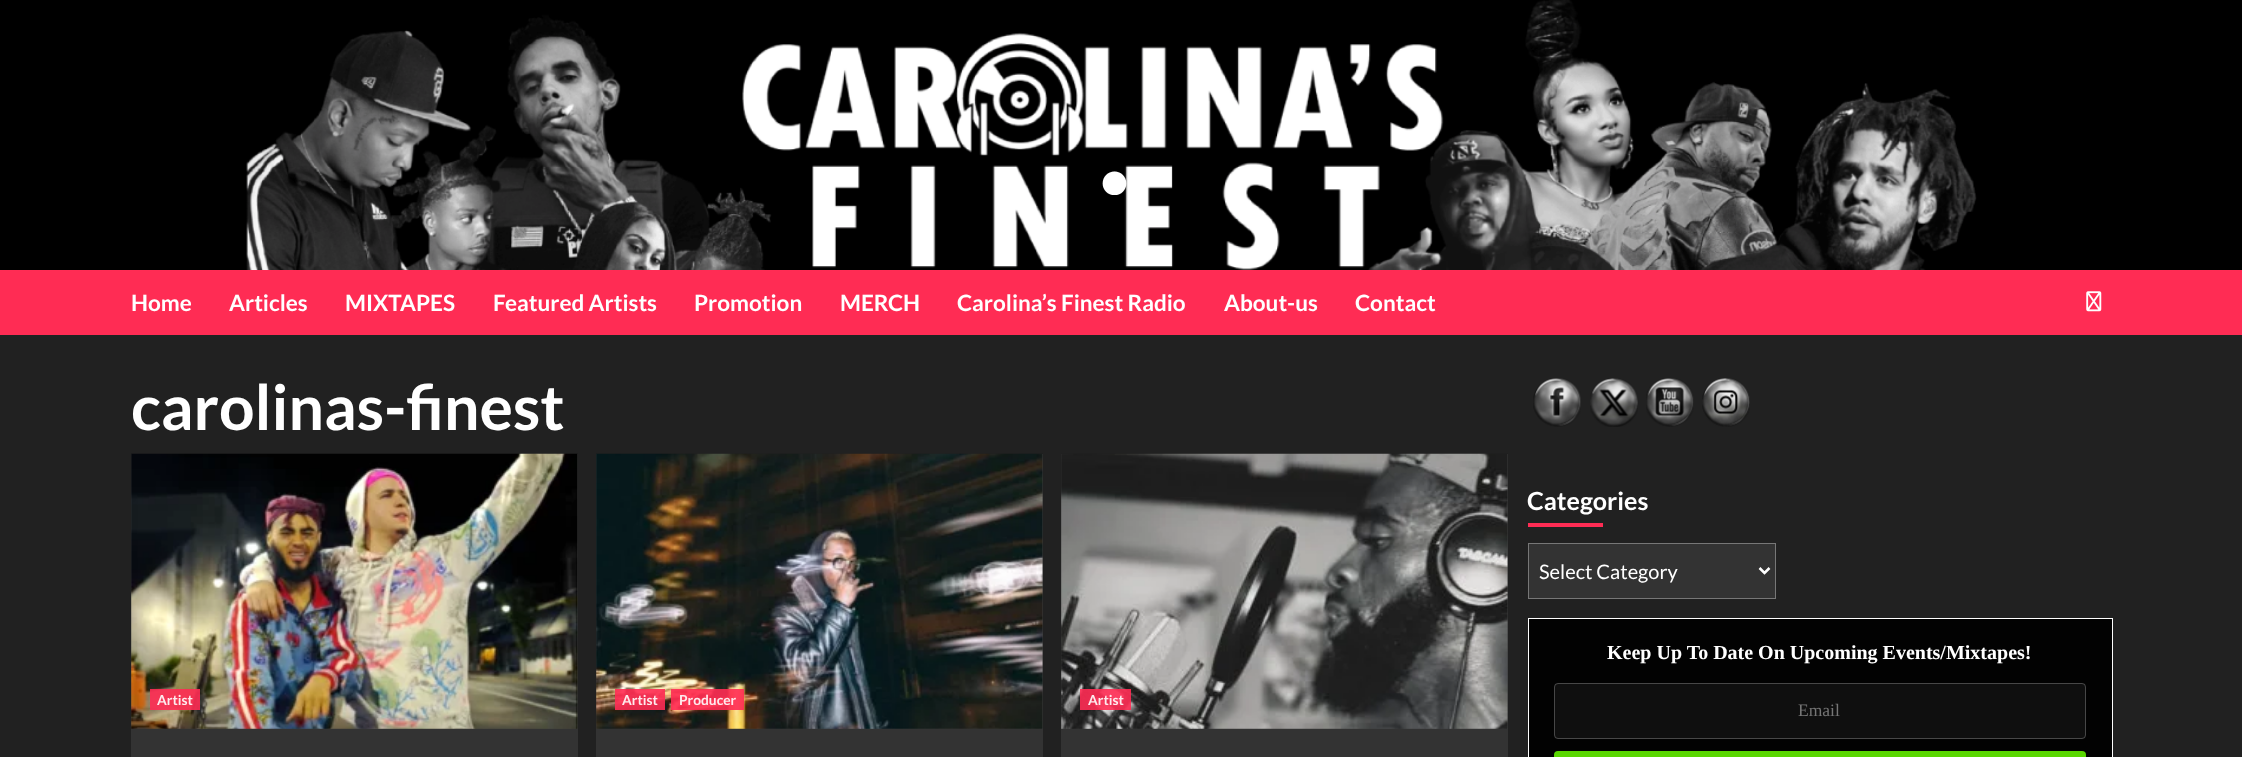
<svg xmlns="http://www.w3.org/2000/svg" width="2242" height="757">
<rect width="100%" height="100%" fill="#212121"/>
<image x="0" y="0" width="2242" height="270" href="media/1.png"/>
<text x="1097" y="194" style="font-family:Lato;font-size:156px;font-weight:bold;fill:#fff">.</text>
<rect y="270" width="2242" height="65" fill="#ff2c54"/>
<text x="131" y="311" style="font-family:Lato;font-size:22.5px;font-weight:bold;fill:#fff">Home</text>
<text x="229" y="311" style="font-family:Lato;font-size:22.5px;font-weight:bold;fill:#fff">Articles</text>
<text x="345" y="311" style="font-family:Lato;font-size:22.5px;font-weight:bold;fill:#fff">MIXTAPES</text>
<text x="493" y="311" style="font-family:Lato;font-size:22.5px;font-weight:bold;fill:#fff">Featured Artists</text>
<text x="694" y="311" style="font-family:Lato;font-size:22.5px;font-weight:bold;fill:#fff">Promotion</text>
<text x="840" y="311" style="font-family:Lato;font-size:22.5px;font-weight:bold;fill:#fff">MERCH</text>
<text x="957" y="311" style="font-family:Lato;font-size:22.5px;font-weight:bold;fill:#fff">Carolina’s Finest Radio</text>
<text x="1224" y="311" style="font-family:Lato;font-size:22.5px;font-weight:bold;fill:#fff">About-us</text>
<text x="1355" y="311" style="font-family:Lato;font-size:22.5px;font-weight:bold;fill:#fff">Contact</text>
<image x="2086" y="291" width="16" height="21" href="media/2.png"/>
<text x="131" y="430" style="font-family:Lato;font-size:62.5px;font-weight:bold;fill:#fff">carolinas-finest</text>
<rect x="131" y="729" width="447" height="28" fill="#333"/>
<rect x="131" y="454" width="447" height="275" fill="#3d3d3d"/>
<image x="131" y="453" width="447" height="276" href="media/3.png"/>
<rect x="150" y="689" width="50" height="21" fill="#ff2c54e6"/>
<text x="157" y="705" style="font-family:Lato;font-size:13.75px;font-weight:bold;fill:#feebee">Artist</text>
<rect x="596" y="729" width="447" height="28" fill="#333"/>
<rect x="596" y="454" width="447" height="275" fill="#3d3d3d"/>
<image x="596" y="453" width="447" height="276" href="media/4.png"/>
<rect x="615" y="689" width="50" height="21" fill="#ff2c54e6"/>
<text x="622" y="705" style="font-family:Lato;font-size:13.75px;font-weight:bold;fill:#feebee">Artist</text>
<rect x="671" y="689" width="73" height="21" fill="#ff2c54e6"/>
<text x="679" y="705" style="font-family:Lato;font-size:13.75px;font-weight:bold;fill:#feebee">Producer</text>
<rect x="1061" y="729" width="447" height="28" fill="#333"/>
<rect x="1061" y="454" width="447" height="275" fill="#3d3d3d"/>
<image x="1061" y="453" width="447" height="276" href="media/5.png"/>
<rect x="1080" y="689" width="51" height="21" fill="#ff2c54e6"/>
<text x="1088" y="705" style="font-family:Lato;font-size:13.75px;font-weight:bold;fill:#feebee">Artist</text>
<image x="1533" y="378" width="48" height="49" href="media/6.png"/>
<image x="1590" y="378" width="48" height="49" href="media/7.png"/>
<image x="1646" y="378" width="48" height="49" href="media/8.png"/>
<image x="1702" y="378" width="48" height="49" href="media/9.png"/>
<text x="1527" y="510" style="font-family:Lato;font-size:25px;font-weight:bold;fill:#fff">Categories</text>
<rect x="1528" y="523" width="75" height="4" fill="#ff2c54"/>
<rect x="1528.5" y="543.5" width="247" height="55" fill="#333" stroke="#777"/>
<path d="M1759.5 568l5 5l5-5" fill="none" stroke="#fff" stroke-width="2.5"/>
<text x="1539" y="579" style="font-family:Lato;font-size:20px;fill:#fff">Select Category</text>
<rect x="1528.5" y="618.5" width="584" height="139" fill="#020202" stroke="#fff"/>
<text x="1607" y="659" style="font-family:Liberation Serif;font-size:20px;font-weight:bold;fill:#fff">Keep Up To Date On Upcoming Events/Mixtapes!</text>
<rect x="1554" y="683" width="532" height="56" rx="4" fill="#0f0f0f"/>
<rect x="1554.5" y="683.5" width="531" height="55" rx="3.5" fill="none" stroke="#80808080"/>
<text x="1798" y="716" style="font-family:Liberation Serif;font-size:17.5px;fill:#757575">Email</text>
<rect x="1554" y="751" width="532" height="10" rx="4" fill="#59d600"/>
</svg>
